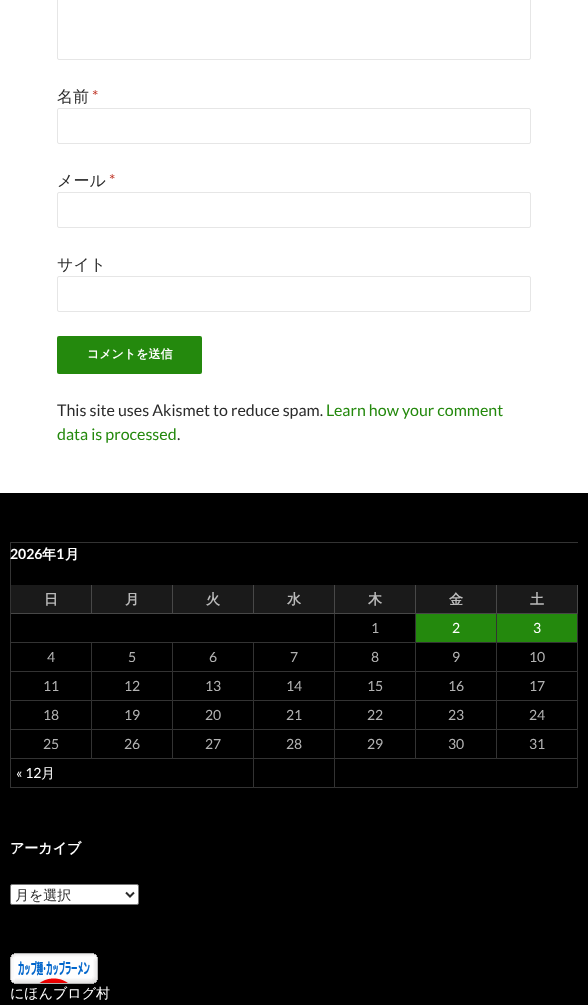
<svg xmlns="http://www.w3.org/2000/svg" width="588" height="1005">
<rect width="100%" height="100%" fill="#fff"/>
<rect x="57.5" y="-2.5" width="473" height="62" rx="1.5" fill="none" stroke="#e6e6e6"/>
<text x="57" y="102" style="font-family:WenQuanYi Zen Hei;font-size:16px;font-weight:500;fill:#2b2b2b">名前</text>
<text x="92" y="102" style="font-family:Lato;font-size:16px;fill:#c0392b">*</text>
<rect x="57.5" y="108.5" width="473" height="35" rx="1.5" fill="none" stroke="#e6e6e6"/>
<text x="57" y="186" style="font-family:WenQuanYi Zen Hei;font-size:16px;font-weight:500;fill:#2b2b2b">メール</text>
<text x="109" y="186" style="font-family:Lato;font-size:16px;fill:#c0392b">*</text>
<rect x="57.5" y="192.5" width="473" height="35" rx="1.5" fill="none" stroke="#e6e6e6"/>
<text x="57" y="270" style="font-family:WenQuanYi Zen Hei;font-size:16px;font-weight:500;fill:#2b2b2b">サイト</text>
<rect x="57.5" y="276.5" width="473" height="35" rx="1.5" fill="none" stroke="#e6e6e6"/>
<rect x="57" y="336" width="145" height="38" rx="2" fill="#24890d"/>
<text x="87" y="358" style="font-family:WenQuanYi Zen Hei;font-size:12px;font-weight:bold;fill:#fff">コメントを送信</text>
<text x="57" y="416" style="font-family:Lato;font-size:16px;fill:#2b2b2b">This site uses Akismet to reduce spam.</text>
<text x="326" y="416" style="font-family:Lato;font-size:16px;fill:#24890d">Learn how your comment</text>
<text x="57" y="440" style="font-family:Lato;font-size:16px;fill:#24890d">data is processed</text>
<text x="177" y="440" style="font-family:Lato;font-size:16px;fill:#2b2b2b">.</text>
<rect y="493" width="588" height="512" fill="#000"/>
<path d="M10 542h568v1h-567z" fill="#333"/>
<path d="M10 788v-246l1 1v245z" fill="#ffffff33"/>
<text x="10" y="559" style="font-family:Lato;font-size:14px;font-weight:bold;fill:#fff">2026</text>
<text x="42" y="559" style="font-family:WenQuanYi Zen Hei;font-size:14px;font-weight:bold;fill:#fff">年</text>
<text x="56" y="559" style="font-family:Lato;font-size:14px;font-weight:bold;fill:#fff">1</text>
<text x="65" y="559" style="font-family:WenQuanYi Zen Hei;font-size:14px;font-weight:bold;fill:#fff">月</text>
<rect x="11" y="585" width="567" height="29" fill="#1a1a1a"/>
<path d="M92 585v29l-1-1v-28z" fill="#484848"/>
<path d="M92 614h-81v-1h80z" fill="#ffffff33"/>
<text x="44" y="604" style="font-family:WenQuanYi Zen Hei;font-size:14px;font-weight:bold;fill:#bababa">日</text>
<path d="M173 585v29l-1-1v-28z" fill="#484848"/>
<path d="M173 614h-81v-1h80z" fill="#ffffff33"/>
<text x="125" y="604" style="font-family:WenQuanYi Zen Hei;font-size:14px;font-weight:bold;fill:#bababa">月</text>
<path d="M254 585v29l-1-1v-28z" fill="#484848"/>
<path d="M254 614h-81v-1h80z" fill="#ffffff33"/>
<text x="206" y="604" style="font-family:WenQuanYi Zen Hei;font-size:14px;font-weight:bold;fill:#bababa">火</text>
<path d="M335 585v29l-1-1v-28z" fill="#484848"/>
<path d="M335 614h-81v-1h80z" fill="#ffffff33"/>
<text x="287" y="604" style="font-family:WenQuanYi Zen Hei;font-size:14px;font-weight:bold;fill:#bababa">水</text>
<path d="M416 585v29l-1-1v-28z" fill="#484848"/>
<path d="M416 614h-81v-1h80z" fill="#ffffff33"/>
<text x="368" y="604" style="font-family:WenQuanYi Zen Hei;font-size:14px;font-weight:bold;fill:#bababa">木</text>
<path d="M497 585v29l-1-1v-28z" fill="#484848"/>
<path d="M497 614h-81v-1h80z" fill="#ffffff33"/>
<text x="449" y="604" style="font-family:WenQuanYi Zen Hei;font-size:14px;font-weight:bold;fill:#bababa">金</text>
<path d="M578 585v29l-1-1v-28z" fill="#484848"/>
<path d="M578 614h-81v-1h80z" fill="#ffffff33"/>
<text x="530" y="604" style="font-family:WenQuanYi Zen Hei;font-size:14px;font-weight:bold;fill:#bababa">土</text>
<path d="M335 614v29l-1-1v-28z" fill="#333"/>
<path d="M335 643h-324v-1h323z" fill="#ffffff33"/>
<path d="M416 614v29l-1-1v-28z" fill="#333"/>
<path d="M416 643h-81v-1h80z" fill="#ffffff33"/>
<text x="371" y="633" style="font-family:Lato;font-size:14px;fill:#b3b3b3">1</text>
<path d="M497 614v29l-1-1v-28z" fill="#333"/>
<path d="M497 643h-81v-1h80z" fill="#ffffff33"/>
<rect x="416" y="614" width="80" height="28" fill="#24890d"/>
<text x="452" y="633" style="font-family:Lato;font-size:14px;fill:#fff">2</text>
<path d="M578 614v29l-1-1v-28z" fill="#333"/>
<path d="M578 643h-81v-1h80z" fill="#ffffff33"/>
<rect x="497" y="614" width="80" height="28" fill="#24890d"/>
<text x="533" y="633" style="font-family:Lato;font-size:14px;fill:#fff">3</text>
<path d="M92 643v29l-1-1v-28z" fill="#333"/>
<path d="M92 672h-81v-1h80z" fill="#ffffff33"/>
<text x="47" y="662" style="font-family:Lato;font-size:14px;fill:#b3b3b3">4</text>
<path d="M173 643v29l-1-1v-28z" fill="#333"/>
<path d="M173 672h-81v-1h80z" fill="#ffffff33"/>
<text x="128" y="662" style="font-family:Lato;font-size:14px;fill:#b3b3b3">5</text>
<path d="M254 643v29l-1-1v-28z" fill="#333"/>
<path d="M254 672h-81v-1h80z" fill="#ffffff33"/>
<text x="209" y="662" style="font-family:Lato;font-size:14px;fill:#b3b3b3">6</text>
<path d="M335 643v29l-1-1v-28z" fill="#333"/>
<path d="M335 672h-81v-1h80z" fill="#ffffff33"/>
<text x="290" y="662" style="font-family:Lato;font-size:14px;fill:#b3b3b3">7</text>
<path d="M416 643v29l-1-1v-28z" fill="#333"/>
<path d="M416 672h-81v-1h80z" fill="#ffffff33"/>
<text x="371" y="662" style="font-family:Lato;font-size:14px;fill:#b3b3b3">8</text>
<path d="M497 643v29l-1-1v-28z" fill="#333"/>
<path d="M497 672h-81v-1h80z" fill="#ffffff33"/>
<text x="452" y="662" style="font-family:Lato;font-size:14px;fill:#b3b3b3">9</text>
<path d="M578 643v29l-1-1v-28z" fill="#333"/>
<path d="M578 672h-81v-1h80z" fill="#ffffff33"/>
<text x="529" y="662" style="font-family:Lato;font-size:14px;fill:#b3b3b3">10</text>
<path d="M92 672v29l-1-1v-28z" fill="#333"/>
<path d="M92 701h-81v-1h80z" fill="#ffffff33"/>
<text x="43" y="691" style="font-family:Lato;font-size:14px;fill:#b3b3b3">11</text>
<path d="M173 672v29l-1-1v-28z" fill="#333"/>
<path d="M173 701h-81v-1h80z" fill="#ffffff33"/>
<text x="124" y="691" style="font-family:Lato;font-size:14px;fill:#b3b3b3">12</text>
<path d="M254 672v29l-1-1v-28z" fill="#333"/>
<path d="M254 701h-81v-1h80z" fill="#ffffff33"/>
<text x="205" y="691" style="font-family:Lato;font-size:14px;fill:#b3b3b3">13</text>
<path d="M335 672v29l-1-1v-28z" fill="#333"/>
<path d="M335 701h-81v-1h80z" fill="#ffffff33"/>
<text x="286" y="691" style="font-family:Lato;font-size:14px;fill:#b3b3b3">14</text>
<path d="M416 672v29l-1-1v-28z" fill="#333"/>
<path d="M416 701h-81v-1h80z" fill="#ffffff33"/>
<text x="367" y="691" style="font-family:Lato;font-size:14px;fill:#b3b3b3">15</text>
<path d="M497 672v29l-1-1v-28z" fill="#333"/>
<path d="M497 701h-81v-1h80z" fill="#ffffff33"/>
<text x="448" y="691" style="font-family:Lato;font-size:14px;fill:#b3b3b3">16</text>
<path d="M578 672v29l-1-1v-28z" fill="#333"/>
<path d="M578 701h-81v-1h80z" fill="#ffffff33"/>
<text x="529" y="691" style="font-family:Lato;font-size:14px;fill:#b3b3b3">17</text>
<path d="M92 701v29l-1-1v-28z" fill="#333"/>
<path d="M92 730h-81v-1h80z" fill="#ffffff33"/>
<text x="43" y="720" style="font-family:Lato;font-size:14px;fill:#b3b3b3">18</text>
<path d="M173 701v29l-1-1v-28z" fill="#333"/>
<path d="M173 730h-81v-1h80z" fill="#ffffff33"/>
<text x="124" y="720" style="font-family:Lato;font-size:14px;fill:#b3b3b3">19</text>
<path d="M254 701v29l-1-1v-28z" fill="#333"/>
<path d="M254 730h-81v-1h80z" fill="#ffffff33"/>
<text x="205" y="720" style="font-family:Lato;font-size:14px;fill:#b3b3b3">20</text>
<path d="M335 701v29l-1-1v-28z" fill="#333"/>
<path d="M335 730h-81v-1h80z" fill="#ffffff33"/>
<text x="286" y="720" style="font-family:Lato;font-size:14px;fill:#b3b3b3">21</text>
<path d="M416 701v29l-1-1v-28z" fill="#333"/>
<path d="M416 730h-81v-1h80z" fill="#ffffff33"/>
<text x="367" y="720" style="font-family:Lato;font-size:14px;fill:#b3b3b3">22</text>
<path d="M497 701v29l-1-1v-28z" fill="#333"/>
<path d="M497 730h-81v-1h80z" fill="#ffffff33"/>
<text x="448" y="720" style="font-family:Lato;font-size:14px;fill:#b3b3b3">23</text>
<path d="M578 701v29l-1-1v-28z" fill="#333"/>
<path d="M578 730h-81v-1h80z" fill="#ffffff33"/>
<text x="529" y="720" style="font-family:Lato;font-size:14px;fill:#b3b3b3">24</text>
<path d="M92 730v29l-1-1v-28z" fill="#333"/>
<path d="M92 759h-81v-1h80z" fill="#ffffff33"/>
<text x="43" y="749" style="font-family:Lato;font-size:14px;fill:#b3b3b3">25</text>
<path d="M173 730v29l-1-1v-28z" fill="#333"/>
<path d="M173 759h-81v-1h80z" fill="#ffffff33"/>
<text x="124" y="749" style="font-family:Lato;font-size:14px;fill:#b3b3b3">26</text>
<path d="M254 730v29l-1-1v-28z" fill="#333"/>
<path d="M254 759h-81v-1h80z" fill="#ffffff33"/>
<text x="205" y="749" style="font-family:Lato;font-size:14px;fill:#b3b3b3">27</text>
<path d="M335 730v29l-1-1v-28z" fill="#333"/>
<path d="M335 759h-81v-1h80z" fill="#ffffff33"/>
<text x="286" y="749" style="font-family:Lato;font-size:14px;fill:#b3b3b3">28</text>
<path d="M416 730v29l-1-1v-28z" fill="#333"/>
<path d="M416 759h-81v-1h80z" fill="#ffffff33"/>
<text x="367" y="749" style="font-family:Lato;font-size:14px;fill:#b3b3b3">29</text>
<path d="M497 730v29l-1-1v-28z" fill="#333"/>
<path d="M497 759h-81v-1h80z" fill="#ffffff33"/>
<text x="448" y="749" style="font-family:Lato;font-size:14px;fill:#b3b3b3">30</text>
<path d="M578 730v29l-1-1v-28z" fill="#333"/>
<path d="M578 759h-81v-1h80z" fill="#ffffff33"/>
<text x="529" y="749" style="font-family:Lato;font-size:14px;fill:#b3b3b3">31</text>
<path d="M254 759v29l-1-1v-28z" fill="#333"/>
<path d="M254 788h-243v-1h242z" fill="#ffffff33"/>
<text x="16" y="778" style="font-family:Lato;font-size:14px;fill:#fff">« 12</text>
<text x="41" y="778" style="font-family:WenQuanYi Zen Hei;font-size:14px;font-weight:500;fill:#fff">月</text>
<path d="M335 759v29l-1-1v-28z" fill="#333"/>
<path d="M335 788h-81v-1h80z" fill="#ffffff33"/>
<path d="M578 759v29l-1-1v-28z" fill="#333"/>
<path d="M578 788h-243v-1h242z" fill="#ffffff33"/>
<text x="10" y="853" style="font-family:WenQuanYi Zen Hei;font-size:14px;font-weight:bold;fill:#fff">アーカイブ</text>
<rect x="10.5" y="884.5" width="128" height="20" rx="1.5" fill="#fff" stroke="#767676"/>
<path d="M126 892.5l4 4l4-4" fill="none" stroke="#2b2b2b" stroke-width="2"/>
<text x="15" y="900" style="font-family:WenQuanYi Zen Hei;font-size:14px;font-weight:500;fill:#2b2b2b">月を選択</text>
<image x="10" y="953" width="88" height="31" href="media/1.png"/>
<text x="10" y="998" style="font-family:WenQuanYi Zen Hei;font-size:14px;font-weight:500;fill:#fff">にほんブログ村</text>
</svg>
